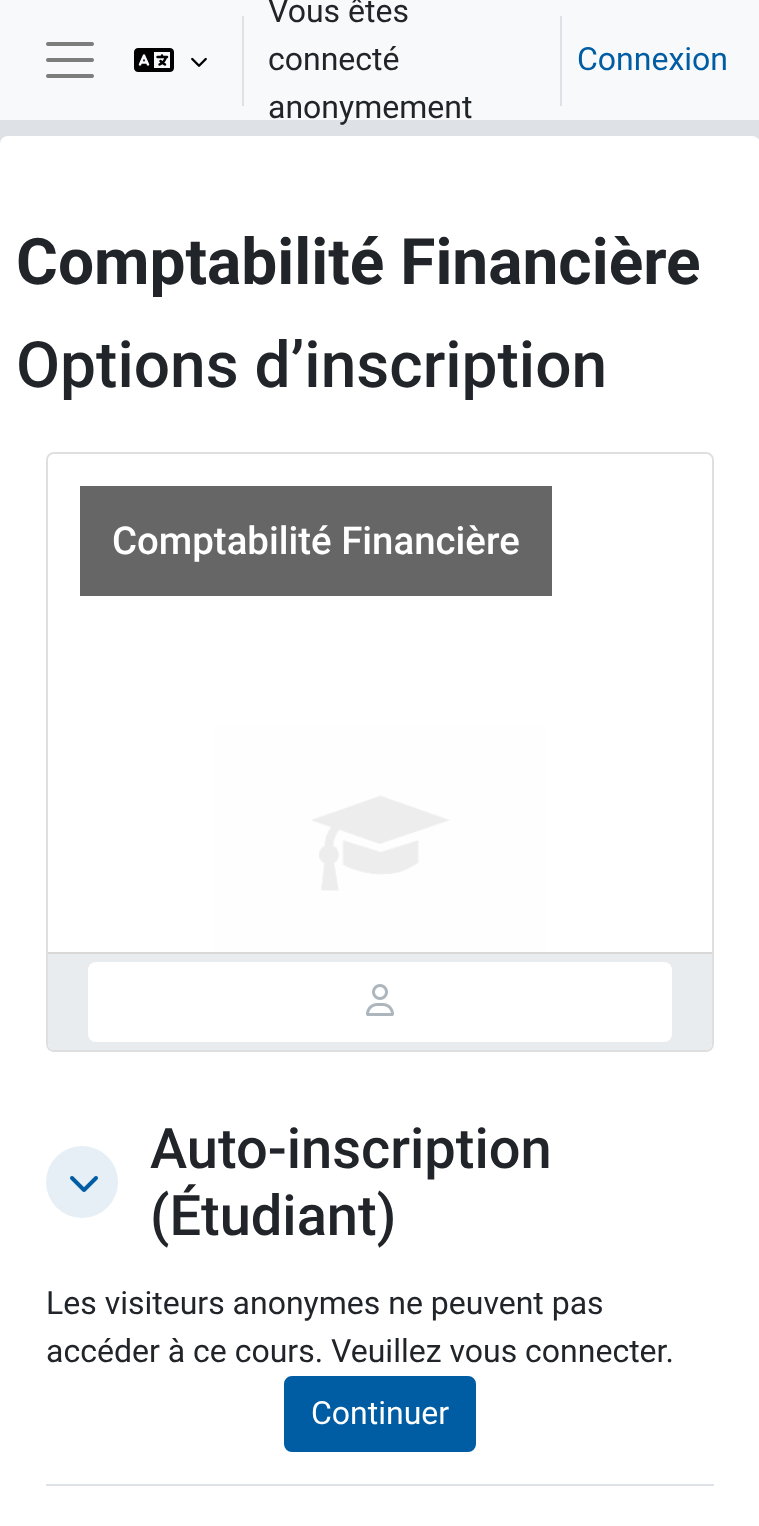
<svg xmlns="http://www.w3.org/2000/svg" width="759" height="1526">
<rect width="100%" height="100%" fill="#dee2e6"/>
<rect width="759" height="120" fill="#f8f9fa"/>
<path d="M48 44h44m-44 16h44m-44 16h44" fill="none" stroke="#7c7d7d" stroke-width="4" stroke-linecap="round"/>
<image x="134" y="48" width="40" height="24" href="media/1.png"/>
<image x="191" y="57" width="16" height="10" href="media/2.png"/>
<rect x="242" y="16" width="2" height="90" fill="#dee2e6"/>
<text x="268" y="22" style="font-family:Roboto;font-size:32px;fill:#212529">Vous êtes</text>
<text x="268" y="70" style="font-family:Roboto;font-size:32px;fill:#212529">connecté</text>
<rect x="560" y="16" width="2" height="90" fill="#dee2e6"/>
<text x="577" y="70" style="font-family:Roboto;font-size:32px;fill:#005da4">Connexion</text>
<text x="268" y="118" style="font-family:Roboto;font-size:32px;fill:#212529">anonymement</text>
<rect y="136" width="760" height="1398" rx="8" fill="#fff"/>
<text x="16" y="284" style="font-family:Roboto;font-size:64px;font-weight:bold;fill:#212529">Comptabilité Financière</text>
<text x="16" y="387" style="font-family:Roboto;font-size:64px;font-weight:500;fill:#212529">Options d’inscription</text>
<rect x="47" y="453" width="666" height="598" rx="7" fill="none" stroke="#dfdfdf" stroke-width="2"/>
<image x="214" y="726" width="332" height="226" href="media/3.png"/>
<rect x="48" y="454" width="664" height="596" rx="6" fill="#ffffffe6"/>
<rect x="80" y="486" width="472" height="110" fill="#666"/>
<text x="112" y="554" style="font-family:Roboto;font-size:38.4px;font-weight:500;fill:#fff">Comptabilité Financière</text>
<rect x="48" y="952" width="664" height="2" fill="#d8d8d8"/>
<path d="M48 954h664v90c0 3.5-2.5 6-6 6h-652c-3.5 0-6-2.5-6-6z" fill="#e9ecef"/>
<rect x="88" y="962" width="584" height="80" rx="8" fill="#fff"/>
<image x="366" y="984" width="28" height="32" href="media/4.png"/>
<rect x="46" y="1484" width="668" height="2" fill="#dee2e6"/>
<circle cx="82" cy="1182" r="36" fill="#e6eff6"/>
<image x="70" y="1176" width="28" height="16" href="media/5.png"/>
<text x="150" y="1168" style="font-family:Roboto;font-size:56px;font-weight:500;fill:#212529">Auto-inscription</text>
<text x="150" y="1235" style="font-family:Roboto;font-size:56px;font-weight:500;fill:#212529">(Étudiant)</text>
<text x="46" y="1314" style="font-family:Roboto;font-size:32px;fill:#212529">Les visiteurs anonymes ne peuvent pas</text>
<text x="46" y="1362" style="font-family:Roboto;font-size:32px;fill:#212529">accéder à ce cours. Veuillez vous connecter.</text>
<rect x="285" y="1377" width="190" height="74" rx="7" fill="#005da4" stroke="#005da4" stroke-width="2"/>
<text x="311" y="1424" style="font-family:Roboto;font-size:32px;fill:#fff">Continuer</text>
</svg>
